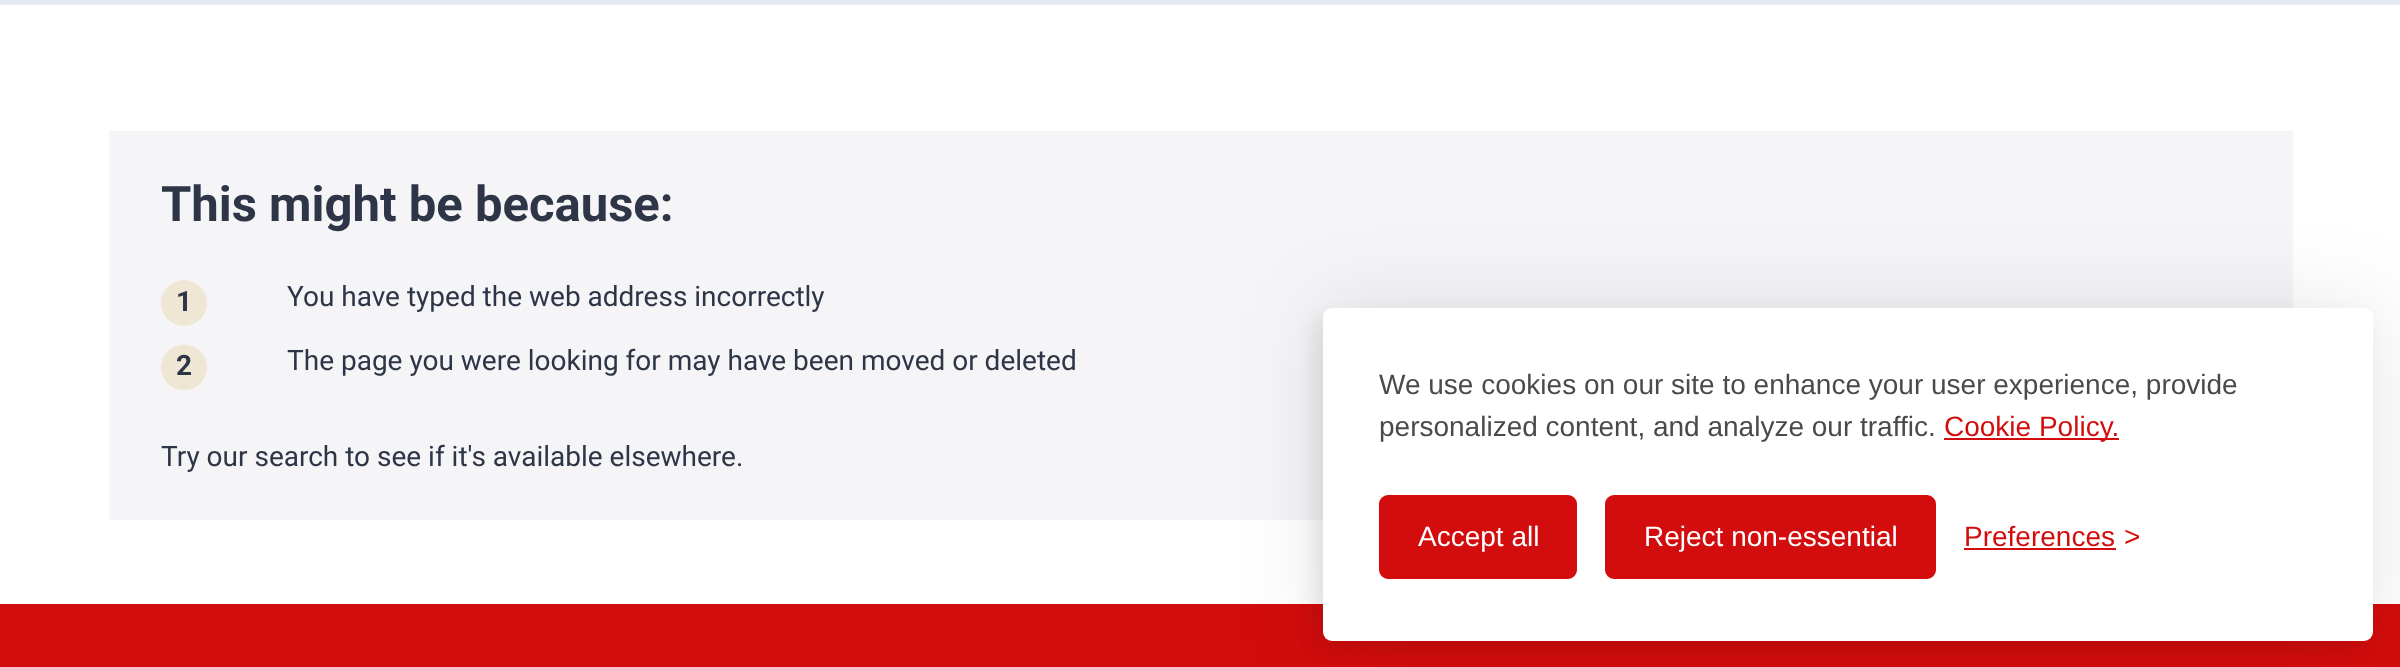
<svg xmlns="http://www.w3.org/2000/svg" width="2400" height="667">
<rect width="100%" height="100%" fill="#fff"/>
<rect width="2400" height="5" fill="#e4e9f4"/>
<rect x="109" y="131" width="2184" height="389" fill="#f5f5f7"/>
<text x="161" y="221" style="font-family:Roboto;font-size:49px;font-weight:bold;fill:#2d3547">This might be because:</text>
<circle cx="184" cy="303" r="23" fill="#efe7d4"/>
<text x="176" y="311" style="font-family:Roboto;font-size:28px;font-weight:bold;fill:#2d3547">1</text>
<text x="287" y="306" style="font-family:Roboto;font-size:28px;fill:#2d3547">You have typed the web address incorrectly</text>
<rect x="161" y="345" width="46" height="45" rx="22.5" fill="#efe7d4"/>
<text x="176" y="375" style="font-family:Roboto;font-size:28px;font-weight:bold;fill:#2d3547">2</text>
<text x="287" y="370" style="font-family:Roboto;font-size:28px;fill:#2d3547">The page you were looking for may have been moved or deleted</text>
<text x="161" y="466" style="font-family:Roboto;font-size:28px;fill:#2d3547">Try our search to see if it's available elsewhere.</text>
<rect y="604" width="2400" height="63" fill="#d30d0d"/>
<rect x="1323" y="308" width="1050" height="333" rx="9" fill="#0000001a" filter="blur(44px)"/>
<rect x="1314" y="317" width="1050" height="332" rx="9" fill="#00000012" filter="blur(9px)"/>
<rect x="1323" y="308" width="1050" height="333" rx="9" fill="#fff"/>
<text x="1379" y="394" style="font-family:Liberation Sans;font-size:28px;fill:#4b494b">We use cookies on our site to enhance your user experience, provide</text>
<text x="1379" y="436" style="font-family:Liberation Sans;font-size:28px;fill:#4b494b">personalized content, and analyze our traffic.</text>
<rect x="1944" y="438" width="175" height="2" fill="#d30d0d"/>
<text x="1944" y="436" style="font-family:Liberation Sans;font-size:28px;fill:#d30d0d">Cookie Policy.</text>
<rect x="1381" y="497" width="194" height="80" rx="7" fill="#d30d0d" stroke="#d30d0d" stroke-width="4"/>
<text x="1418" y="546" style="font-family:Liberation Sans;font-size:28px;fill:#fff">Accept all</text>
<rect x="1607" y="497" width="327" height="80" rx="7" fill="#d30d0d" stroke="#d30d0d" stroke-width="4"/>
<text x="1644" y="546" style="font-family:Liberation Sans;font-size:28px;fill:#fff">Reject non-essential</text>
<text x="1964" y="546" style="font-family:Liberation Sans;font-size:28px;fill:#d30d0d">Preferences</text>
<rect x="1964" y="548" width="152" height="2" fill="#d30d0d"/>
<text x="2124" y="546" style="font-family:Liberation Sans;font-size:28px;fill:#d30d0d">&gt;</text>
</svg>
